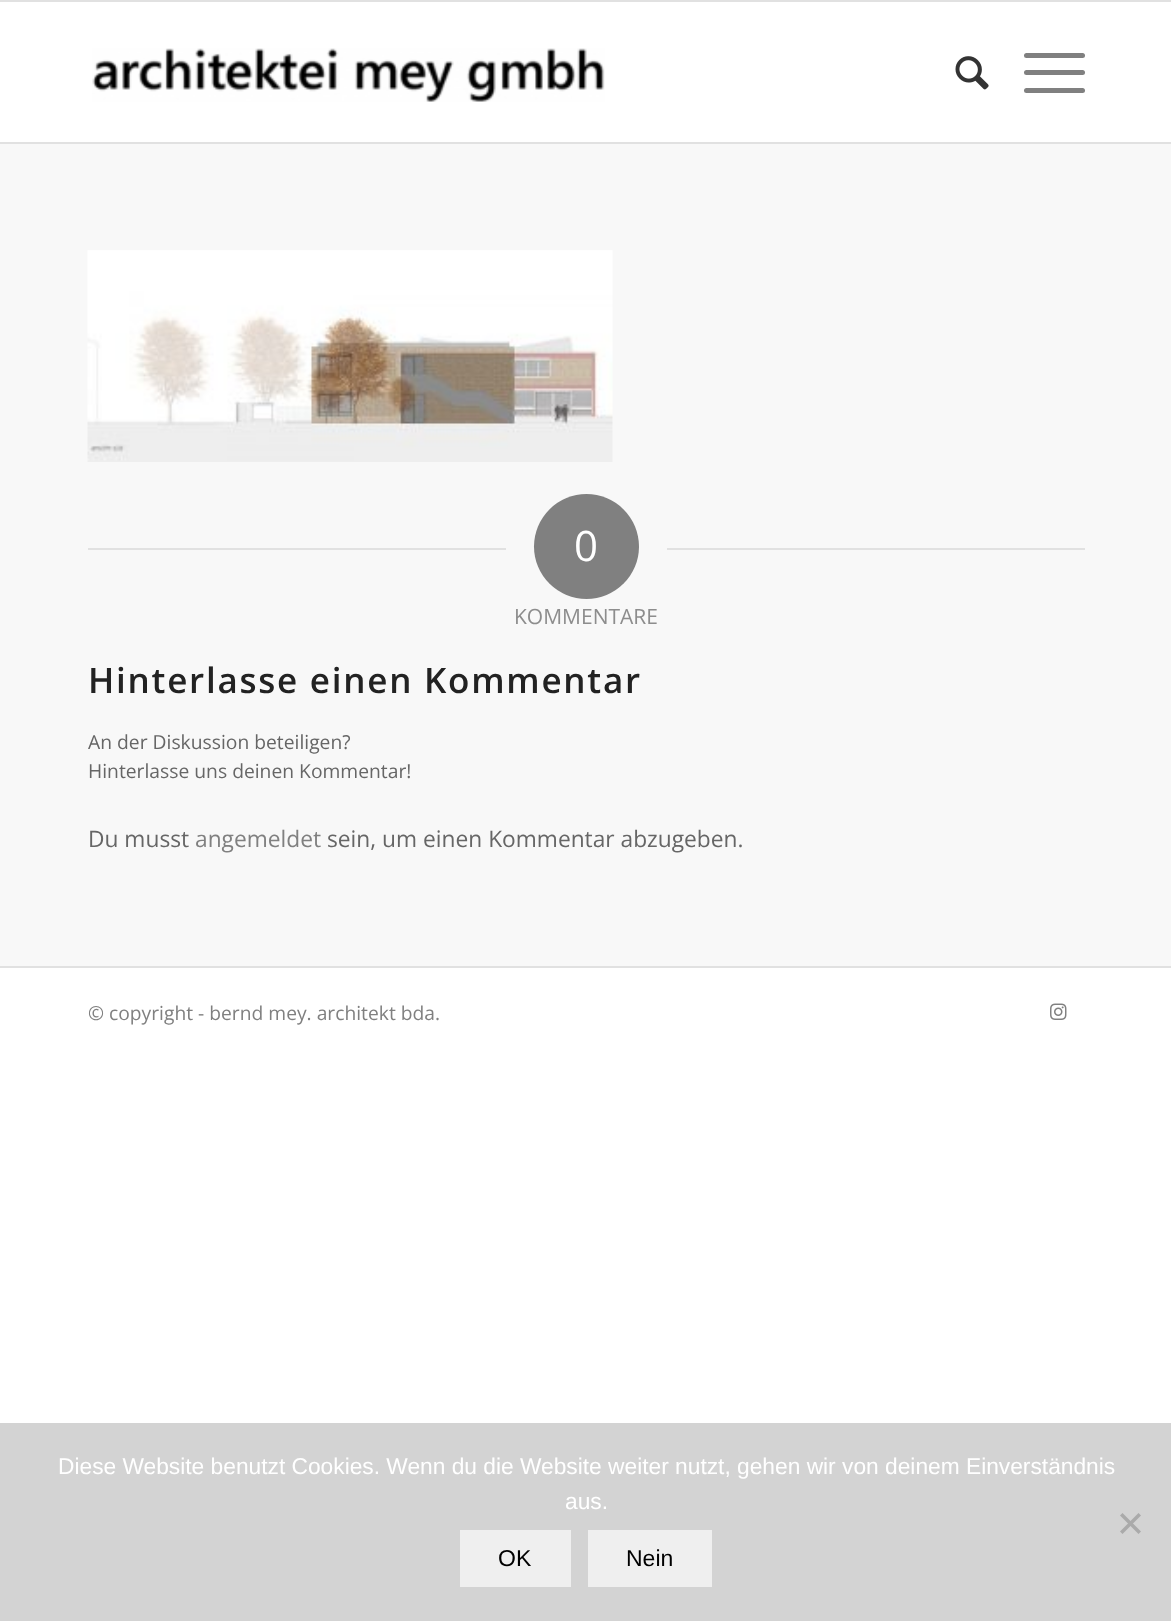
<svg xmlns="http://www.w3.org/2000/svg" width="1171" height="1621">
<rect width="100%" height="100%" fill="#fff"/>
<rect width="1171" height="2" fill="#e1e1e1"/>
<rect y="142" width="1171" height="2" fill="#e1e1e1"/>
<image x="92" y="48" width="513" height="54" href="media/1.png"/>
<image x="955" y="56" width="34" height="34" href="media/2.png"/>
<rect x="1024" y="70" width="61" height="5" rx="2.5" fill="#808080"/>
<rect x="1024" y="53" width="61" height="5" rx="2.5" fill="#808080"/>
<rect x="1024" y="88" width="61" height="5" rx="2.5" fill="#808080"/>
<rect y="144" width="1171" height="822" fill="#f8f8f8"/>
<image x="87" y="250" width="526" height="212" href="media/3.png"/>
<rect x="88" y="548" width="418" height="2" fill="#e1e1e1"/>
<circle cx="586.5" cy="546.5" r="52.5" fill="#808080"/>
<text x="574" y="561" style="font-family:Open Sans;font-size:42px;fill:#fff">0</text>
<rect x="667" y="548" width="418" height="2" fill="#e1e1e1"/>
<text x="514" y="624" style="font-family:Open Sans;font-size:21px;fill:#8d8d8d">KOMMENTARE</text>
<text x="88" y="693" style="font-family:Open Sans;font-size:35px;font-weight:600;letter-spacing:1.75px;fill:#222">Hinterlasse einen Kommentar</text>
<text x="88" y="749" style="font-family:Open Sans;font-size:19.3px;fill:#666">An der Diskussion beteiligen?</text>
<text x="88" y="778" style="font-family:Open Sans;font-size:19.3px;fill:#666">Hinterlasse uns deinen Kommentar!</text>
<text x="88" y="847" style="font-family:Open Sans;font-size:22.75px;fill:#666">Du musst</text>
<text x="195" y="847" style="font-family:Open Sans;font-size:22.75px;fill:#808080">angemeldet</text>
<text x="327" y="847" style="font-family:Open Sans;font-size:22.75px;fill:#666">sein, um einen Kommentar abzugeben.</text>
<rect y="966" width="1171" height="2" fill="#e1e1e1"/>
<text x="88" y="1020" style="font-family:Open Sans;font-size:19.25px;fill:#808080">© copyright - bernd mey. architekt bda.</text>
<image x="1050" y="1003" width="17" height="17" href="media/4.png"/>
<rect y="1423" width="1171" height="198" fill="#d3d3d3"/>
<text x="58" y="1474" style="font-family:Liberation Sans;font-size:22.75px;fill:#fff">Diese Website benutzt Cookies. Wenn du die Website weiter nutzt, gehen wir von deinem Einverständnis</text>
<text x="565" y="1509" style="font-family:Liberation Sans;font-size:22.75px;fill:#fff">aus.</text>
<path d="M1138.5 1513l2.5 2.5l-18.5 18.5l-2.5-2.5z" fill="#aaa"/>
<path d="M1120 1515.5l2.5-2.5l18.5 18.5l-2.5 2.5z" fill="#aaa"/>
<rect x="460" y="1530" width="111" height="57" fill="#efefef"/>
<text x="498" y="1566" style="font-family:Liberation Sans;font-size:23px;fill:#000">OK</text>
<rect x="588" y="1530" width="124" height="57" fill="#efefef"/>
<text x="626" y="1566" style="font-family:Liberation Sans;font-size:23px;fill:#000">Nein</text>
</svg>
